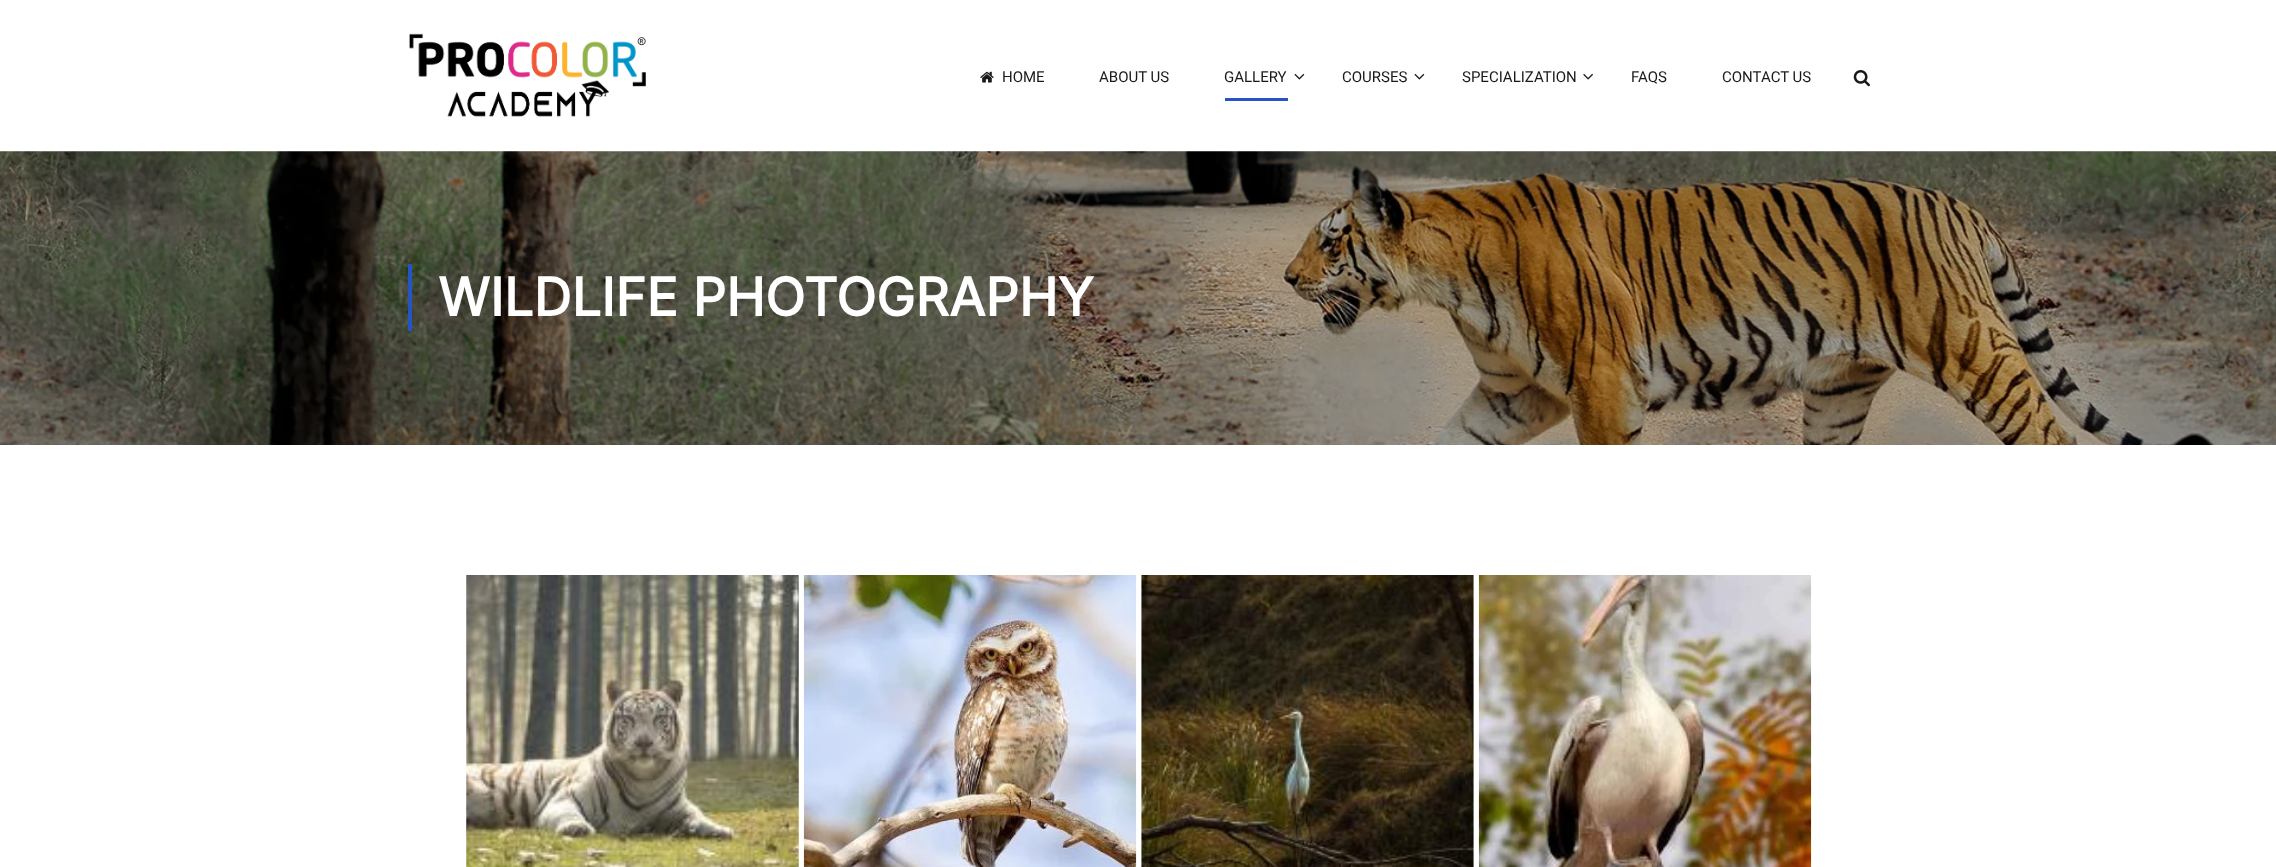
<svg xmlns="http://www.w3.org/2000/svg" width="2276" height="867">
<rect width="100%" height="100%" fill="#fff"/>
<image x="409" y="33" width="237" height="84" href="media/1.png"/>
<image x="980" y="71" width="14" height="12" href="media/2.png"/>
<text x="1002" y="82" style="font-family:Roboto;font-size:15px;fill:#191919">HOME</text>
<text x="1099" y="82" style="font-family:Roboto;font-size:15px;fill:#191919">ABOUT US</text>
<text x="1224" y="82" style="font-family:Roboto;font-size:15px;fill:#191919">GALLERY</text>
<image x="1294" y="73" width="11" height="7" href="media/3.png"/>
<text x="1342" y="82" style="font-family:Roboto;font-size:15px;fill:#191919">COURSES</text>
<image x="1414" y="73" width="11" height="7" href="media/3.png"/>
<text x="1462" y="82" style="font-family:Roboto;font-size:15px;fill:#191919">SPECIALIZATION</text>
<image x="1583" y="73" width="10" height="7" href="media/4.png"/>
<text x="1631" y="82" style="font-family:Roboto;font-size:15px;fill:#191919">FAQS</text>
<text x="1722" y="82" style="font-family:Roboto;font-size:15px;fill:#191919">CONTACT US</text>
<image x="1853" y="70" width="17" height="17" href="media/5.png"/>
<rect x="1225" y="98" width="63" height="3" fill="#2554c7"/>
<image x="0" y="151" width="2276" height="294" href="media/6.png"/>
<rect x="408" y="264" width="4" height="67" fill="#2554c7"/>
<text x="438" y="316" style="font-family:Inter;font-size:52.5px;font-weight:bold;fill:#fff">WILDLIFE PHOTOGRAPHY</text>
<image x="466" y="575" width="333" height="292" href="media/7.png"/>
<image x="803" y="575" width="334" height="292" href="media/8.png"/>
<image x="1141" y="575" width="333" height="292" href="media/9.png"/>
<image x="1478" y="575" width="334" height="292" href="media/10.png"/>
</svg>
